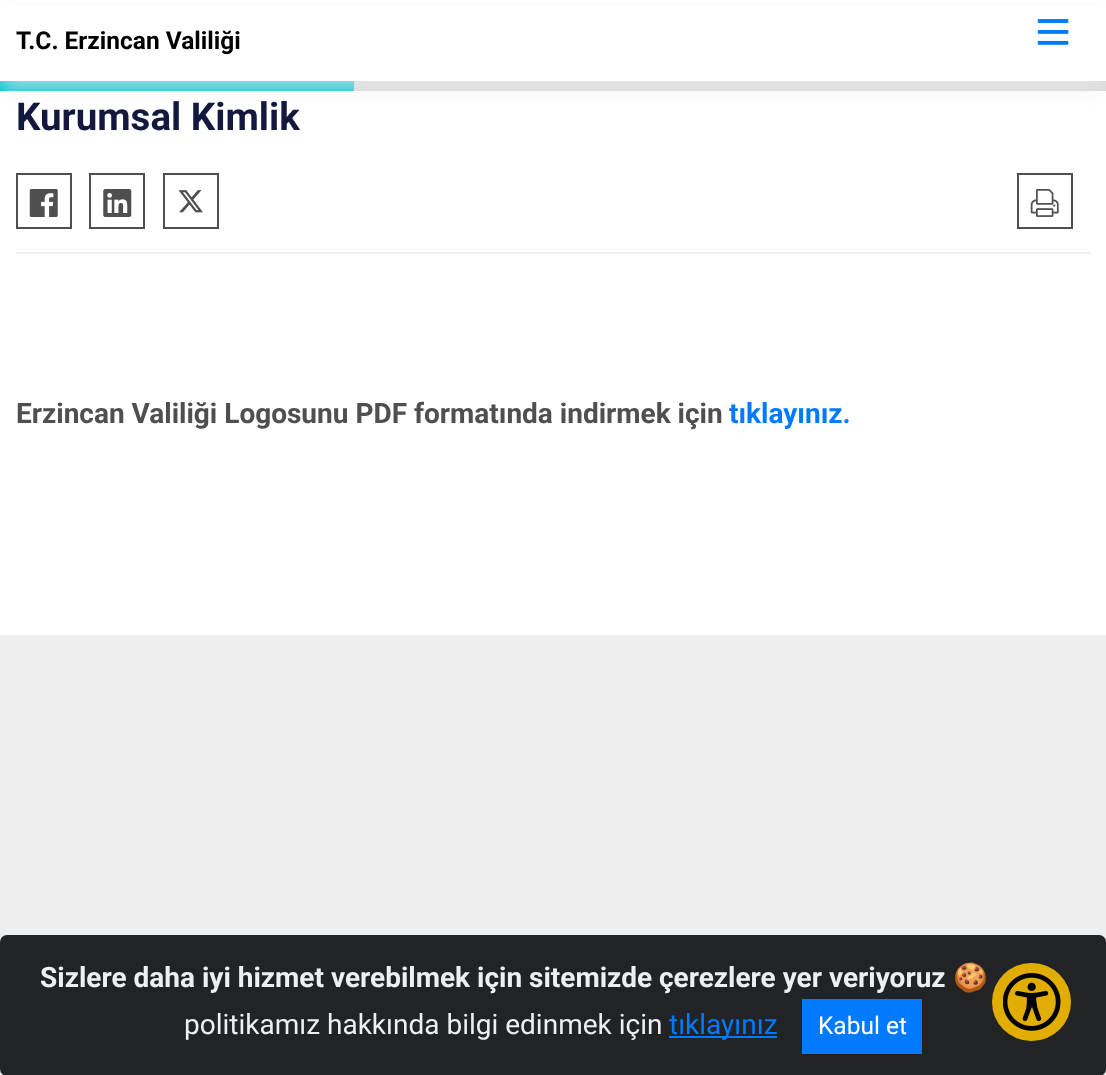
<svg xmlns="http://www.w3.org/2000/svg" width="1106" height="1075">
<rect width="100%" height="100%" fill="#fff"/>
<rect x="354" y="81" width="752" height="10" fill="#d7d7d7"/>
<rect y="81" width="354" height="10" fill="#00bed0"/>
<rect y="11" width="1106" height="80" fill="#eeeeee9e" filter="blur(9px)"/>
<rect y="5" width="1106" height="76" fill="#fff"/>
<text x="16" y="49" style="font-family:Roboto;font-size:24.5px;font-weight:bold;fill:#000">T.C. Erzincan Valiliği</text>
<image x="1037" y="19" width="32" height="26" href="media/1.png"/>
<rect x="16" y="252" width="1074" height="2" fill="#eee"/>
<text x="16" y="130" style="font-family:Roboto;font-size:38.5px;font-weight:bold;fill:#13183e">Kurumsal Kimlik</text>
<rect x="17" y="174" width="54" height="54" fill="none" stroke="#4f4f4f" stroke-width="2"/>
<image x="29" y="189" width="29" height="28" href="media/2.png"/>
<rect x="90" y="174" width="54" height="54" fill="none" stroke="#4f4f4f" stroke-width="2"/>
<image x="103" y="189" width="29" height="28" href="media/3.png"/>
<rect x="164" y="174" width="54" height="54" fill="none" stroke="#4f4f4f" stroke-width="2"/>
<image x="179" y="190" width="24" height="23" href="media/4.png"/>
<rect x="1018" y="174" width="54" height="54" fill="none" stroke="#4f4f4f" stroke-width="2"/>
<image x="1030" y="189" width="29" height="28" href="media/5.png"/>
<text x="16" y="423" style="font-family:Roboto;font-size:28px;font-weight:bold;fill:#4f4f4f">Erzincan Valiliği Logosunu PDF formatında indirmek için</text>
<text x="729" y="423" style="font-family:Roboto;font-size:28px;font-weight:bold;fill:#007bff">tıklayınız.</text>
<rect y="635" width="1106" height="440" fill="#eee"/>
<rect y="935" width="1106" height="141" rx="7" fill="#212327"/>
<text x="40" y="987" style="font-family:Roboto;font-size:28px;font-weight:bold;fill:#ecf0f1">Sizlere daha iyi hizmet verebilmek için sitemizde çerezlere yer veriyoruz</text>
<text x="953" y="987" style="font-family:Noto Color Emoji;font-size:28px;fill:#ecf0f1">🍪</text>
<text x="184" y="1034" style="font-family:Roboto;font-size:28px;fill:#ecf0f1">politikamız hakkında bilgi edinmek için</text>
<rect x="669" y="1036" width="108" height="2" fill="#007bff"/>
<text x="669" y="1034" style="font-family:Roboto;font-size:28px;fill:#007bff">tıklayınız</text>
<rect x="802" y="999" width="120" height="55" fill="#007bff"/>
<text x="818" y="1034" style="font-family:Roboto;font-size:24.5px;fill:#fff">Kabul et</text>
<rect x="992" y="963" width="79" height="78" rx="39" fill="#e1ad01"/>
<image x="1003" y="973" width="58" height="58" href="media/6.png"/>
</svg>
